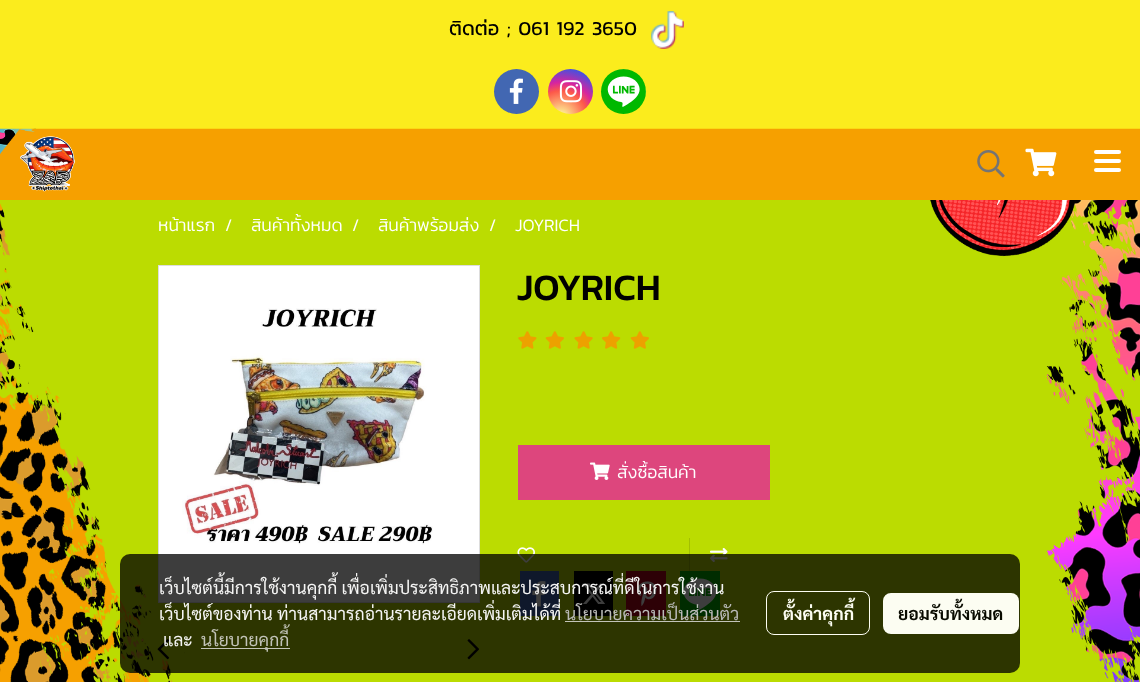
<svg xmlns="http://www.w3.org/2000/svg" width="1140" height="682">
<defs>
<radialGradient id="g1" gradientUnits="userSpaceOnUse" cx="561" cy="117" r="58"><stop offset="0" stop-color="#fdf497"/><stop offset="0.05" stop-color="#fdf497"/><stop offset="0.45" stop-color="#fd5949"/><stop offset="0.6" stop-color="#d6249f"/><stop offset="0.9" stop-color="#285aeb"/></radialGradient>
</defs>
<rect width="100%" height="100%" fill="#fff"/>
<image x="0" y="200" width="1140" height="482" href="media/1.png"/>
<rect width="1140" height="129" fill="#fbec1d"/>
<text x="449" y="35" style="font-family:Kanit;font-size:20px;fill:#000">ติดต่อ ; 061 192 3650</text>
<image x="651" y="11" width="33" height="38" href="media/2.png"/>
<circle cx="516.5" cy="91.5" r="22.5" fill="#4267b2"/>
<image x="509" y="78" width="14" height="26" href="media/3.png"/>
<circle cx="570.5" cy="91.5" r="22.5" fill="url(#g1)"/>
<image x="559" y="80" width="23" height="23" href="media/4.png"/>
<circle cx="623.5" cy="91.5" r="22.5" fill="#00b800"/>
<image x="607" y="69" width="39" height="38" href="media/5.png"/>
<image x="0" y="128" width="1140" height="72" href="media/6.png"/>
<image x="20" y="136" width="55" height="56" href="media/7.png"/>
<image x="977" y="150" width="28" height="28" href="media/8.png"/>
<image x="1025" y="148" width="32" height="29" href="media/9.png"/>
<rect x="1094" y="159" width="27" height="4" rx="2" fill="#fff"/>
<rect x="1094" y="150" width="27" height="4" rx="2" fill="#fff"/>
<rect x="1094" y="168" width="27" height="4" rx="2" fill="#fff"/>
<text x="158" y="231" style="font-family:Kanit;font-size:17.5px;font-weight:300;fill:#fff">หน้าแรก</text>
<text x="225" y="231" style="font-family:Kanit;font-size:17.5px;font-weight:300;fill:#fff">/</text>
<text x="251" y="231" style="font-family:Kanit;font-size:17.5px;font-weight:300;fill:#fff">สินค้าทั้งหมด</text>
<text x="352" y="231" style="font-family:Kanit;font-size:17.5px;font-weight:300;fill:#fff">/</text>
<text x="378" y="231" style="font-family:Kanit;font-size:17.5px;font-weight:300;fill:#fff">สินค้าพร้อมส่ง</text>
<text x="489" y="231" style="font-family:Kanit;font-size:17.5px;font-weight:300;fill:#fff">/</text>
<text x="515" y="231" style="font-family:Kanit;font-size:17.5px;font-weight:300;fill:#fff">JOYRICH</text>
<rect x="158.5" y="265.5" width="321" height="337" fill="#fff" stroke="#ddd"/>
<image x="182" y="308" width="251" height="237" href="media/10.png"/>
<image x="157" y="639" width="13" height="21" href="media/11.png"/>
<image x="467" y="639" width="12" height="21" href="media/12.png"/>
<text x="517" y="300" style="font-family:Kanit;font-size:37.5px;font-weight:500;fill:#000">JOYRICH</text>
<image x="518" y="331" width="19" height="18" href="media/13.png"/>
<image x="545" y="331" width="19" height="18" href="media/14.png"/>
<image x="574" y="331" width="19" height="18" href="media/15.png"/>
<image x="602" y="331" width="19" height="18" href="media/16.png"/>
<image x="630" y="331" width="19" height="18" href="media/14.png"/>
<rect x="518" y="445" width="252" height="55" fill="#dd467d"/>
<image x="590" y="462" width="20" height="18" href="media/17.png"/>
<text x="617" y="478" style="font-family:Kanit;font-size:17.5px;font-weight:300;fill:#fff">สั่งซื้อสินค้า</text>
<image x="517" y="547" width="18" height="16" href="media/18.png"/>
<rect x="689" y="538" width="1" height="33" fill="#a3bf01"/>
<image x="710" y="547" width="18" height="16" href="media/19.png"/>
<rect x="520" y="571" width="39" height="45" fill="#4267b2"/>
<image x="532" y="581" width="14" height="26" href="media/20.png"/>
<rect x="574" y="571" width="39" height="45" fill="#000"/>
<image x="582" y="583" width="23" height="21" href="media/21.png"/>
<rect x="626" y="571" width="40" height="45" fill="#bd081c"/>
<image x="637" y="581" width="20" height="25" href="media/22.png"/>
<rect x="680" y="571" width="40" height="45" fill="#00b800"/>
<image x="683" y="578" width="34" height="32" href="media/23.png"/>
<rect x="120" y="554" width="900" height="119" rx="10" fill="#000000c2"/>
<text x="159" y="594" style="font-family:Sarabun;font-size:17.5px;fill:#f5f5f4">เว็บไซต์นี้มีการใช้งานคุกกี้ เพื่อเพิ่มประสิทธิภาพและประสบการณ์ที่ดีในการใช้งาน</text>
<text x="159" y="620" style="font-family:Sarabun;font-size:17.5px;fill:#f5f5f4">เว็บไซต์ของท่าน</text>
<text x="277" y="620" style="font-family:Sarabun;font-size:17.5px;fill:#f5f5f4">ท่านสามารถอ่านรายละเอียดเพิ่มเติมได้ที่</text>
<text x="565" y="620" style="font-family:Sarabun;font-size:17.5px;fill:#babab8">นโยบายความเป็นส่วนตัว</text>
<rect x="565" y="621" width="175" height="1" fill="#c2c3b8"/>
<text x="163" y="646" style="font-family:Sarabun;font-size:17.5px;fill:#f5f5f4">และ</text>
<rect x="201" y="648" width="89" height="1" fill="#c2c3b8"/>
<text x="201" y="646" style="font-family:Sarabun;font-size:17.5px;fill:#c2c3b8">นโยบายคุกกี้</text>
<rect x="766.5" y="591.5" width="103" height="43" rx="7.5" fill="none" stroke="#fcfdf2"/>
<text x="783" y="620" style="font-family:Sarabun;font-size:17.5px;font-weight:bold;fill:#fcfdf2">ตั้งค่าคุกกี้</text>
<rect x="883" y="593" width="136" height="41" rx="8" fill="#fcfdf2"/>
<text x="898" y="620" style="font-family:Sarabun;font-size:17.5px;font-weight:bold;fill:#090b00">ยอมรับทั้งหมด</text>
</svg>
